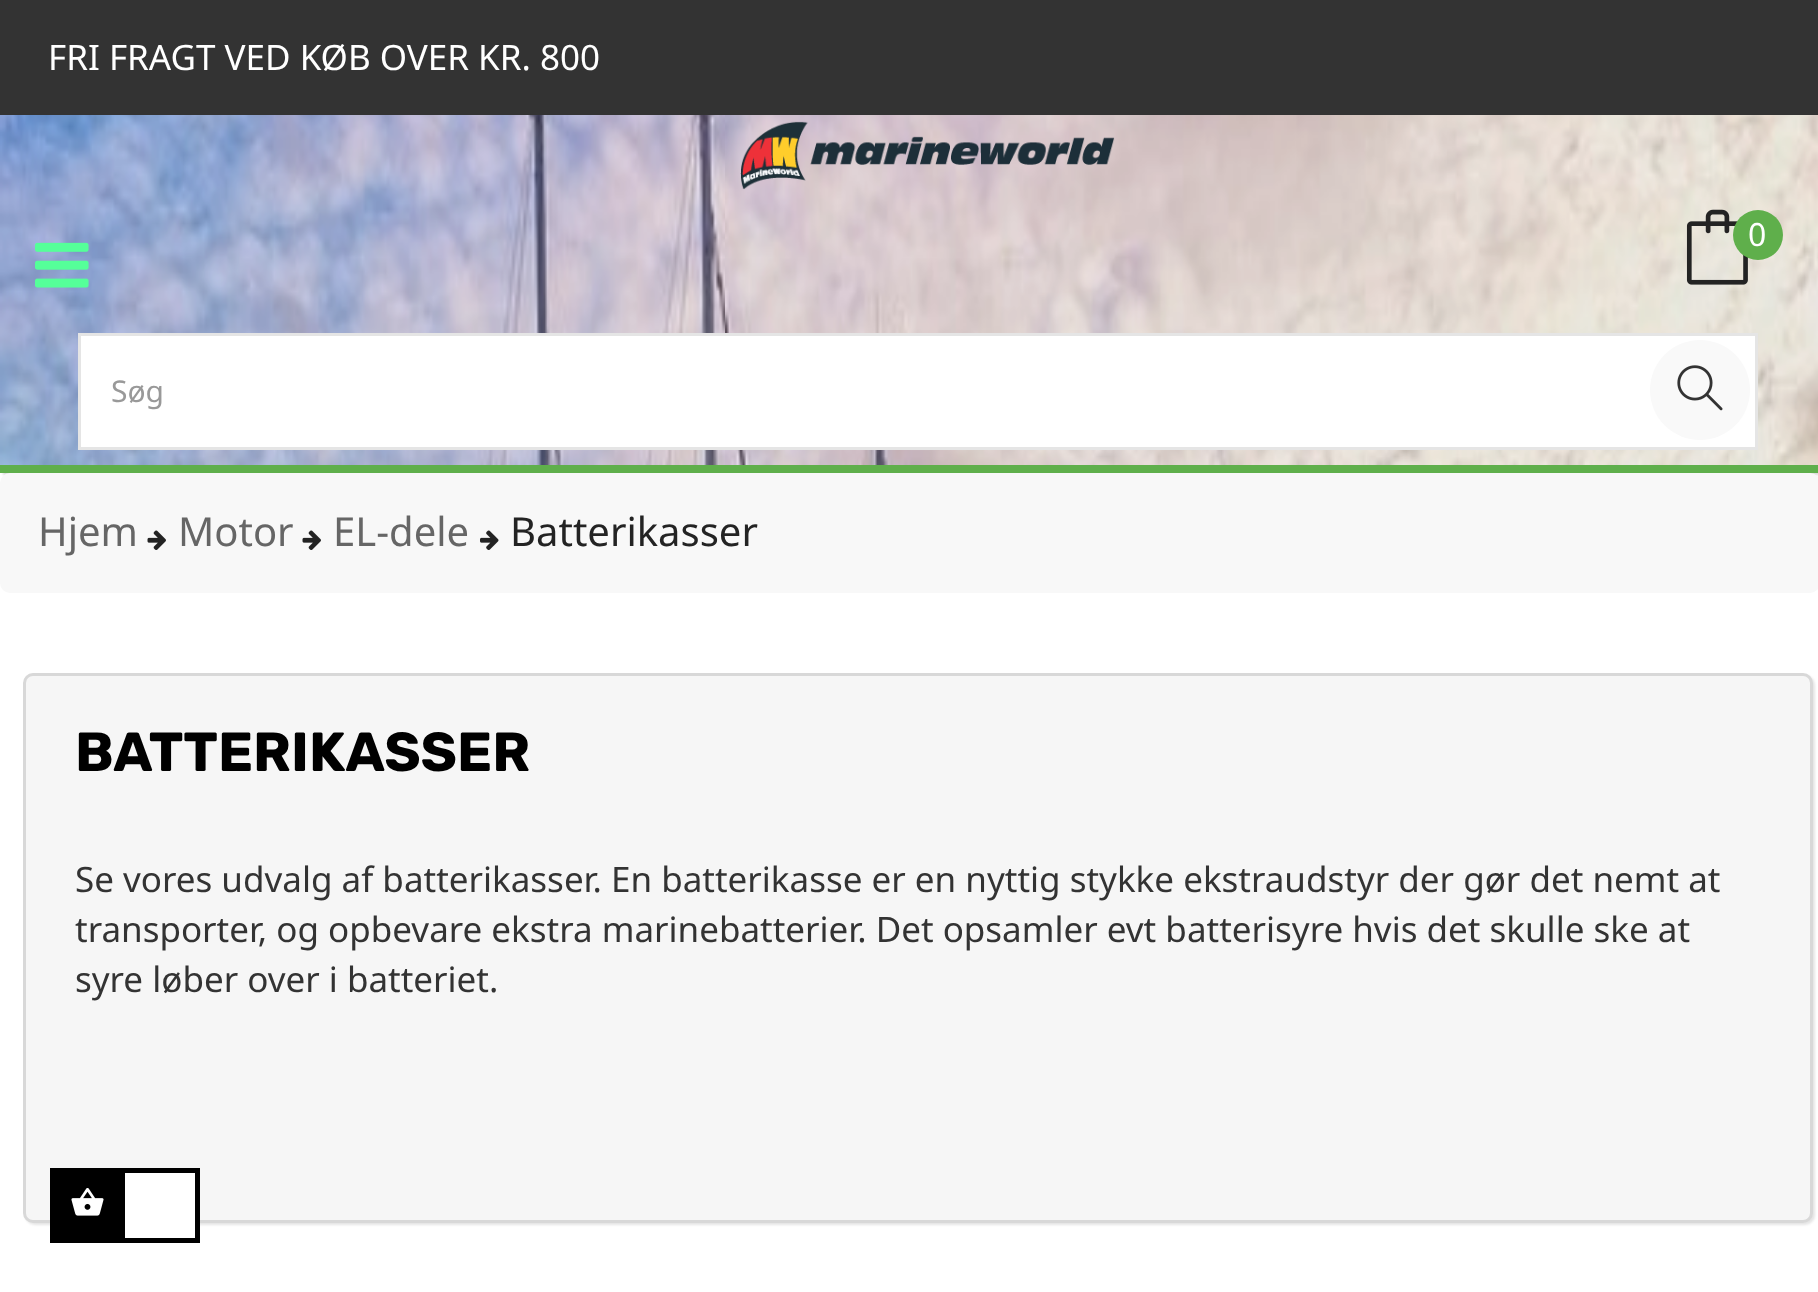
<svg xmlns="http://www.w3.org/2000/svg" width="1818" height="1292">
<rect width="100%" height="100%" fill="#fff"/>
<rect width="1818" height="115" fill="#333"/>
<text x="48" y="70" style="font-family:Noto Sans;font-size:35px;fill:#fff">FRI FRAGT VED KØB OVER KR. 800</text>
<rect x="3" y="118" width="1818" height="357" fill="#00000026" filter="blur(1px)"/>
<image x="0" y="115" width="1818" height="350" href="media/1.png"/>
<rect y="465" width="1818" height="8" fill="#5faf4b"/>
<image x="740" y="121" width="375" height="69" href="media/2.png"/>
<image x="1686" y="209" width="62" height="76" href="media/3.png"/>
<circle cx="1758" cy="235" r="25" fill="#5faf4b"/>
<text x="1748" y="246" style="font-family:Noto Sans;font-size:32px;fill:#fff">0</text>
<image x="35" y="242" width="54" height="46" href="media/4.png"/>
<rect x="79.5" y="334.5" width="1677" height="114" fill="#fff" stroke="#e5e5e5" stroke-width="3"/>
<text x="111" y="402" style="font-family:Noto Sans;font-size:30px;fill:#999">Søg</text>
<circle cx="1700" cy="390" r="50" fill="#f9f9f9"/>
<image x="1677" y="365" width="46" height="46" href="media/5.png"/>
<rect y="473" width="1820" height="120" rx="10" fill="#f8f8f8"/>
<text x="38" y="546" style="font-family:Noto Sans;font-size:40px;fill:#666">Hjem</text>
<image x="147" y="530" width="19" height="20" href="media/6.png"/>
<text x="178" y="546" style="font-family:Noto Sans;font-size:40px;fill:#666">Motor</text>
<image x="302" y="530" width="19" height="20" href="media/6.png"/>
<text x="333" y="546" style="font-family:Noto Sans;font-size:40px;fill:#666">EL-dele</text>
<image x="480" y="530" width="19" height="20" href="media/7.png"/>
<text x="510" y="546" style="font-family:Noto Sans;font-size:40px;fill:#232323">Batterikasser</text>
<rect x="25" y="675" width="1790" height="550" rx="10" fill="#0000001a" filter="blur(1px)"/>
<rect x="23" y="673" width="1790" height="550" rx="10" fill="#f6f6f6"/>
<rect x="24.5" y="674.5" width="1787" height="547" rx="8.5" fill="none" stroke="#0000001f" stroke-width="3"/>
<text x="75" y="771" style="font-family:Rubik;font-size:55px;font-weight:bold;fill:#000">BATTERIKASSER</text>
<text x="75" y="892" style="font-family:Noto Sans;font-size:35px;fill:#333">Se vores udvalg af batterikasser. En batterikasse er en nyttig stykke ekstraudstyr der gør det nemt at</text>
<text x="75" y="942" style="font-family:Noto Sans;font-size:35px;fill:#333">transporter, og opbevare ekstra marinebatterier. Det opsamler evt batterisyre hvis det skulle ske at</text>
<text x="75" y="992" style="font-family:Noto Sans;font-size:35px;fill:#333">syre løber over i batteriet.</text>
<rect x="50" y="1168" width="150" height="75" fill="#000"/>
<image x="71" y="1188" width="33" height="28" href="media/8.png"/>
<rect x="125" y="1173" width="70" height="65" fill="#fff"/>
</svg>
